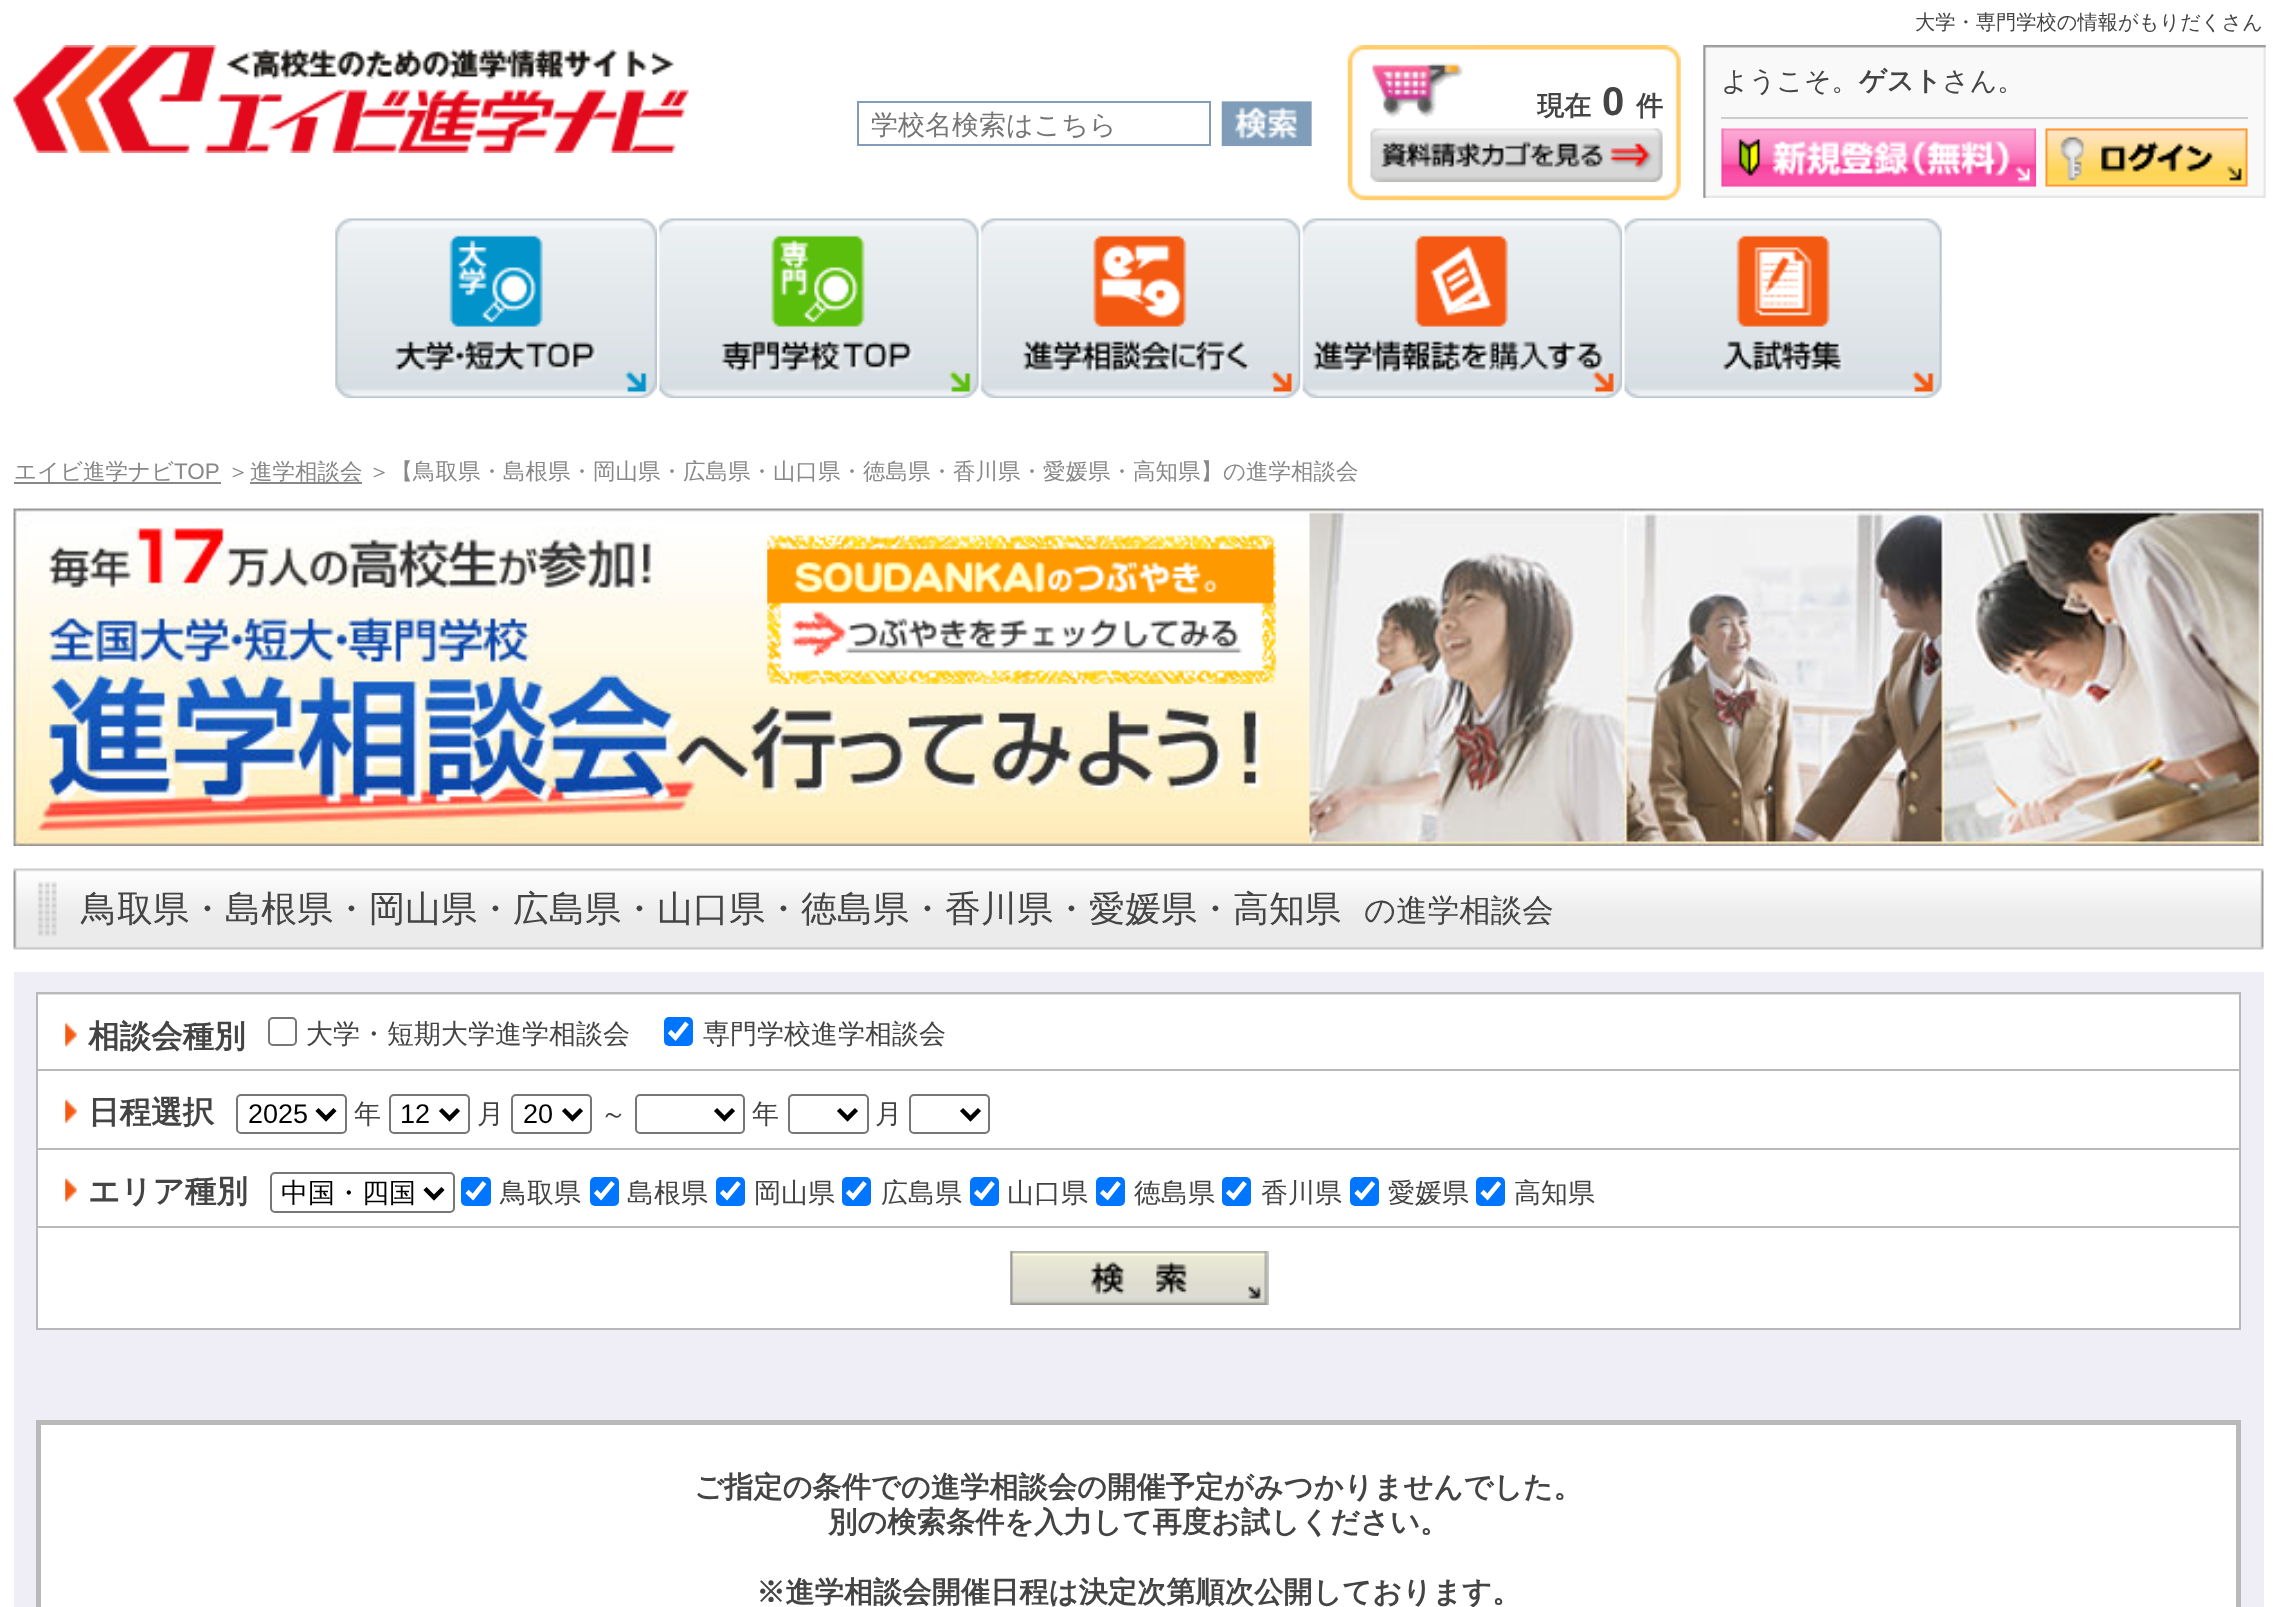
<svg xmlns="http://www.w3.org/2000/svg" width="2277" height="1607">
<rect width="100%" height="100%" fill="#fff"/>
<text x="1915" y="29" style="font-family:WenQuanYi Zen Hei;font-size:20.25px;font-weight:500;fill:#444">大学・専門学校の情報がもりだくさん</text>
<image x="13" y="45" width="676" height="108" href="media/1.png"/>
<image x="1703" y="45" width="563" height="153" href="media/2.png"/>
<rect x="1721" y="117" width="527" height="2" fill="#ccc"/>
<text x="1721" y="90" style="font-family:WenQuanYi Zen Hei;font-size:27px;font-weight:500;fill:#444">ようこそ。</text>
<text x="1859" y="90" style="font-family:WenQuanYi Zen Hei;font-size:27px;font-weight:bold;fill:#444">ゲスト</text>
<text x="1942" y="90" style="font-family:WenQuanYi Zen Hei;font-size:27px;font-weight:500;fill:#444">さん。</text>
<image x="1721" y="128" width="316" height="59" href="media/3.png"/>
<image x="2045" y="128" width="203" height="59" href="media/4.png"/>
<image x="1347" y="45" width="334" height="156" href="media/5.png"/>
<text x="1537" y="115" style="font-family:WenQuanYi Zen Hei;font-size:27px;font-weight:bold;fill:#444">現在</text>
<text x="1602" y="115" style="font-family:Liberation Sans;font-size:40px;font-weight:bold;fill:#444">0</text>
<text x="1636" y="115" style="font-family:WenQuanYi Zen Hei;font-size:27px;font-weight:bold;fill:#444">件</text>
<image x="1370" y="128" width="293" height="55" href="media/6.png"/>
<rect x="858" y="102" width="352" height="43" fill="none" stroke="#809db9" stroke-width="2"/>
<text x="871" y="134" style="font-family:WenQuanYi Zen Hei;font-size:27px;font-weight:500;fill:#757575">学校名検索はこちら</text>
<rect x="1222" y="101" width="90" height="45" fill="#efefef"/>
<image x="1221" y="101" width="91" height="46" href="media/7.png"/>
<image x="335" y="218" width="322" height="181" href="media/8.png"/>
<image x="658" y="218" width="321" height="181" href="media/9.png"/>
<image x="978" y="218" width="323" height="181" href="media/10.png"/>
<image x="1300" y="218" width="323" height="181" href="media/11.png"/>
<image x="1622" y="218" width="320" height="181" href="media/12.png"/>
<text x="14" y="479" style="font-family:WenQuanYi Zen Hei;font-size:22.5px;font-weight:500;fill:#888">エイビ進学ナビ</text>
<text x="174" y="479" style="font-family:Liberation Sans;font-size:22.5px;fill:#888">TOP</text>
<rect x="14" y="482" width="207" height="2" fill="#888"/>
<text x="227" y="479" style="font-family:WenQuanYi Zen Hei;font-size:22.5px;font-weight:500;fill:#888">＞</text>
<rect x="250" y="482" width="112" height="2" fill="#888"/>
<text x="250" y="479" style="font-family:WenQuanYi Zen Hei;font-size:22.5px;font-weight:500;fill:#888">進学相談会</text>
<text x="368" y="479" style="font-family:WenQuanYi Zen Hei;font-size:22.5px;font-weight:500;fill:#888">＞【鳥取県・島根県・岡山県・広島県・山口県・徳島県・香川県・愛媛県・高知県】の進学相談会</text>
<image x="13" y="508" width="2251" height="338" href="media/13.png"/>
<image x="767" y="531" width="509" height="153" href="media/14.png"/>
<image x="13" y="868" width="2251" height="82" href="media/15.png"/>
<text x="81" y="921" style="font-family:WenQuanYi Zen Hei;font-size:36px;font-weight:500;fill:#444">鳥取県・島根県・岡山県・広島県・山口県・徳島県・香川県・愛媛県・高知県</text>
<text x="1364" y="921" style="font-family:WenQuanYi Zen Hei;font-size:31.5px;font-weight:500;fill:#444">の進学相談会</text>
<rect x="14" y="972" width="2250" height="635" fill="#efeef6"/>
<rect x="38" y="994" width="2201" height="1" fill="#dfdfdf"/>
<rect x="2239" y="992" width="2" height="338" fill="#b9b9b9"/>
<rect x="36" y="1328" width="2205" height="2" fill="#b9b9b9"/>
<rect x="36" y="992" width="2" height="338" fill="#b9b9b9"/>
<rect x="38" y="995" width="2201" height="74" fill="#fff"/>
<rect x="38" y="992" width="2201" height="2" fill="#b9b9b9"/>
<image x="65" y="1021" width="12" height="26" href="media/16.png"/>
<text x="88" y="1047" style="font-family:WenQuanYi Zen Hei;font-size:31.5px;font-weight:bold;fill:#444">相談会種別</text>
<rect x="269" y="1018" width="27" height="27" rx="4" fill="none" stroke="#767676" stroke-width="2"/>
<text x="306" y="1043" style="font-family:WenQuanYi Zen Hei;font-size:27px;font-weight:500;fill:#444">大学・短期大学進学相談会</text>
<rect x="664" y="1017" width="29" height="29" rx="5" fill="#0075ff"/>
<path d="M669.5 1031.5l6 6l11.5-14.5" fill="none" stroke="#fff" stroke-width="4.7"/>
<text x="703" y="1043" style="font-family:WenQuanYi Zen Hei;font-size:27px;font-weight:500;fill:#444">専門学校進学相談会</text>
<rect x="38" y="1071" width="2201" height="77" fill="#fff"/>
<rect x="38" y="1069" width="2201" height="2" fill="#b9b9b9"/>
<image x="65" y="1098" width="12" height="25" href="media/17.png"/>
<text x="88" y="1123" style="font-family:WenQuanYi Zen Hei;font-size:31.5px;font-weight:bold;fill:#444">日程選択</text>
<rect x="237" y="1095" width="109" height="38" rx="4" fill="none" stroke="#767676" stroke-width="2"/>
<path d="M317 1109.5l9 9l9-9" fill="none" stroke="#000" stroke-width="4.5"/>
<text x="248" y="1123" style="font-family:Liberation Sans;font-size:27px;fill:#000">2025</text>
<text x="354" y="1123" style="font-family:WenQuanYi Zen Hei;font-size:27px;font-weight:500;fill:#444">年</text>
<rect x="390" y="1095" width="79" height="38" rx="4" fill="none" stroke="#767676" stroke-width="2"/>
<path d="M440.5 1109.5l9 9l9-9" fill="none" stroke="#000" stroke-width="4.5"/>
<text x="400" y="1123" style="font-family:Liberation Sans;font-size:27px;fill:#000">12</text>
<text x="477" y="1123" style="font-family:WenQuanYi Zen Hei;font-size:27px;font-weight:500;fill:#444">月</text>
<rect x="512" y="1095" width="79" height="38" rx="4" fill="none" stroke="#767676" stroke-width="2"/>
<path d="M563.5 1109.5l9 9l9-9" fill="none" stroke="#000" stroke-width="4.5"/>
<text x="523" y="1123" style="font-family:Liberation Sans;font-size:27px;fill:#000">20</text>
<text x="600" y="1123" style="font-family:WenQuanYi Zen Hei;font-size:27px;font-weight:500;fill:#444">～</text>
<rect x="636" y="1095" width="108" height="38" rx="4" fill="none" stroke="#767676" stroke-width="2"/>
<path d="M715.5 1109.5l9 9l9-9" fill="none" stroke="#000" stroke-width="4.5"/>
<text x="752" y="1123" style="font-family:WenQuanYi Zen Hei;font-size:27px;font-weight:500;fill:#444">年</text>
<rect x="789" y="1095" width="79" height="38" rx="4" fill="none" stroke="#767676" stroke-width="2"/>
<path d="M838.5 1109.5l9 9l9-9" fill="none" stroke="#000" stroke-width="4.5"/>
<text x="875" y="1123" style="font-family:WenQuanYi Zen Hei;font-size:27px;font-weight:500;fill:#444">月</text>
<rect x="910" y="1095" width="79" height="38" rx="4" fill="none" stroke="#767676" stroke-width="2"/>
<path d="M961.5 1109.5l9 9l9-9" fill="none" stroke="#000" stroke-width="4.5"/>
<rect x="38" y="1150" width="2201" height="178" fill="#fff"/>
<rect x="38" y="1148" width="2201" height="2" fill="#b9b9b9"/>
<image x="65" y="1176" width="12" height="26" href="media/18.png"/>
<text x="88" y="1202" style="font-family:WenQuanYi Zen Hei;font-size:31.5px;font-weight:bold;fill:#444">エリア種別</text>
<rect x="271" y="1173" width="183" height="39" rx="4" fill="none" stroke="#767676" stroke-width="2"/>
<path d="M425 1188.5l9 9l9-9" fill="none" stroke="#000" stroke-width="4.5"/>
<text x="281" y="1202" style="font-family:WenQuanYi Zen Hei;font-size:27px;font-weight:500;fill:#000">中国・四国</text>
<rect x="461" y="1177" width="30" height="29" rx="5" fill="#0075ff"/>
<path d="M467 1191.5l6 5.5l11.5-14.5" fill="none" stroke="#fff" stroke-width="4.7"/>
<text x="500" y="1202" style="font-family:WenQuanYi Zen Hei;font-size:27px;font-weight:500;fill:#444">鳥取県</text>
<rect x="590" y="1177" width="29" height="29" rx="5" fill="#0075ff"/>
<path d="M595.5 1191.5l5.5 5.5l12-14.5" fill="none" stroke="#fff" stroke-width="4.7"/>
<text x="627" y="1202" style="font-family:WenQuanYi Zen Hei;font-size:27px;font-weight:500;fill:#444">島根県</text>
<rect x="716" y="1177" width="29" height="29" rx="5" fill="#0075ff"/>
<path d="M721.5 1191.5l5.5 5.5l12-14.5" fill="none" stroke="#fff" stroke-width="4.7"/>
<text x="754" y="1202" style="font-family:WenQuanYi Zen Hei;font-size:27px;font-weight:500;fill:#444">岡山県</text>
<rect x="842" y="1177" width="29" height="29" rx="5" fill="#0075ff"/>
<path d="M847.5 1191.5l5.5 5.5l12-14.5" fill="none" stroke="#fff" stroke-width="4.7"/>
<text x="881" y="1202" style="font-family:WenQuanYi Zen Hei;font-size:27px;font-weight:500;fill:#444">広島県</text>
<rect x="970" y="1177" width="29" height="29" rx="5" fill="#0075ff"/>
<path d="M975.5 1191.5l6 5.5l11.5-14.5" fill="none" stroke="#fff" stroke-width="4.7"/>
<text x="1007" y="1202" style="font-family:WenQuanYi Zen Hei;font-size:27px;font-weight:500;fill:#444">山口県</text>
<rect x="1096" y="1177" width="29" height="29" rx="5" fill="#0075ff"/>
<path d="M1101.5 1191.5l6 5.5l11.5-14.5" fill="none" stroke="#fff" stroke-width="4.7"/>
<text x="1134" y="1202" style="font-family:WenQuanYi Zen Hei;font-size:27px;font-weight:500;fill:#444">徳島県</text>
<rect x="1222" y="1177" width="29" height="29" rx="5" fill="#0075ff"/>
<path d="M1227.5 1191.5l6 5.5l11.5-14.5" fill="none" stroke="#fff" stroke-width="4.7"/>
<text x="1261" y="1202" style="font-family:WenQuanYi Zen Hei;font-size:27px;font-weight:500;fill:#444">香川県</text>
<rect x="1350" y="1177" width="29" height="29" rx="5" fill="#0075ff"/>
<path d="M1356 1191.5l5.5 5.5l12-14.5" fill="none" stroke="#fff" stroke-width="4.7"/>
<text x="1388" y="1202" style="font-family:WenQuanYi Zen Hei;font-size:27px;font-weight:500;fill:#444">愛媛県</text>
<rect x="1476" y="1177" width="29" height="29" rx="5" fill="#0075ff"/>
<path d="M1482 1191.5l5.5 5.5l12-14.5" fill="none" stroke="#fff" stroke-width="4.7"/>
<text x="1514" y="1202" style="font-family:WenQuanYi Zen Hei;font-size:27px;font-weight:500;fill:#444">高知県</text>
<rect x="38" y="1226" width="2201" height="2" fill="#b9b9b9"/>
<image x="1010" y="1251" width="259" height="54" href="media/19.png"/>
<rect x="38.5" y="1422.5" width="2200" height="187" fill="#fff" stroke="#b9b9b9" stroke-width="5"/>
<text x="694" y="1497" style="font-family:WenQuanYi Zen Hei;font-size:29.25px;font-weight:bold;fill:#444">ご指定の条件での進学相談会の開催予定がみつかりませんでした。</text>
<text x="828" y="1532" style="font-family:WenQuanYi Zen Hei;font-size:29.25px;font-weight:bold;fill:#444">別の検索条件を入力して再度お試しください。</text>
<text x="756" y="1602" style="font-family:WenQuanYi Zen Hei;font-size:29.25px;font-weight:bold;fill:#444">※進学相談会開催日程は決定次第順次公開しております。</text>
</svg>
